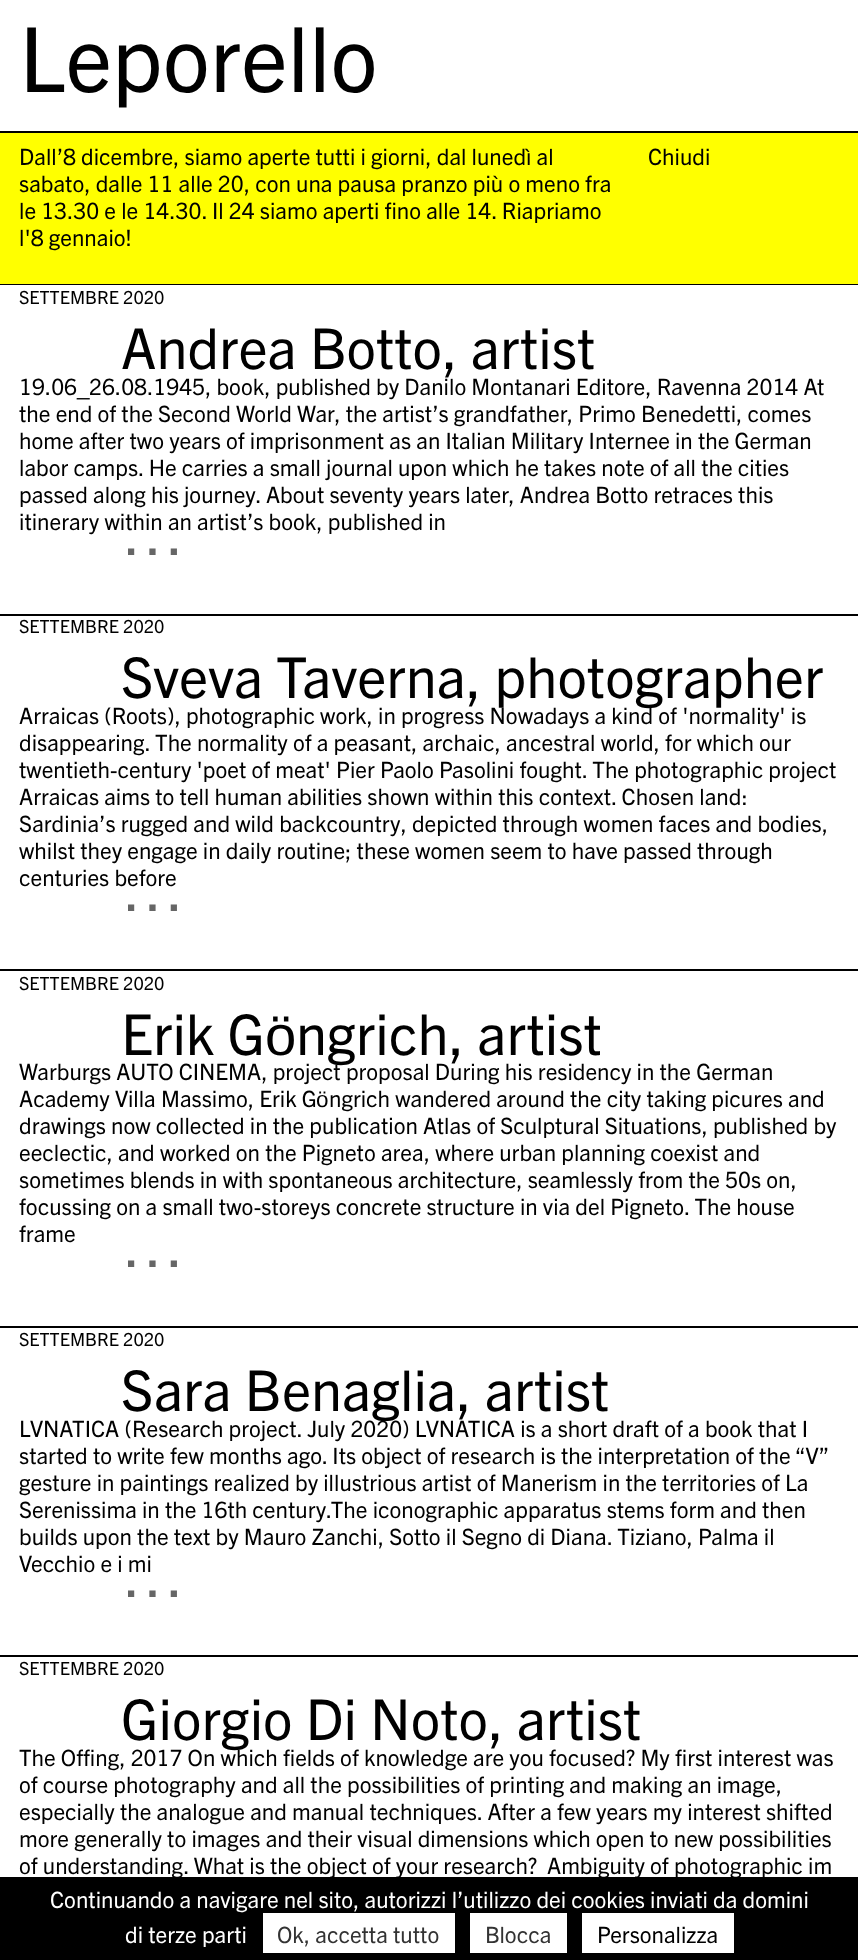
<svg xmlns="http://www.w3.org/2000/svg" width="858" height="1960">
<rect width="100%" height="100%" fill="#ff0"/>
<rect width="858" height="131" fill="#fff"/>
<rect y="131" width="858" height="2" fill="#000"/>
<text x="19" y="92" style="font-family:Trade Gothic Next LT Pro;font-size:90px;fill:#000">Leporello</text>
<rect y="284" width="858" height="1" fill="#000"/>
<text x="19" y="165" style="font-family:Trade Gothic Next LT Pro;font-size:22.5px;fill:#000">Dall’8 dicembre, siamo aperte tutti i giorni, dal lunedì al</text>
<text x="19" y="192" style="font-family:Trade Gothic Next LT Pro;font-size:22.5px;fill:#000">sabato, dalle 11 alle 20, con una pausa pranzo più o meno fra</text>
<text x="19" y="219" style="font-family:Trade Gothic Next LT Pro;font-size:22.5px;fill:#000">le 13.30 e le 14.30. Il 24 siamo aperti fino alle 14. Riapriamo</text>
<text x="19" y="246" style="font-family:Trade Gothic Next LT Pro;font-size:22.5px;fill:#000">l'8 gennaio!</text>
<text x="648" y="165" style="font-family:Trade Gothic Next LT Pro;font-size:22.5px;fill:#000">Chiudi</text>
<rect y="285" width="858" height="329" fill="#fff"/>
<text x="19" y="304" style="font-family:Trade Gothic Next LT Pro;font-size:18px;fill:#000">SETTEMBRE 2020</text>
<text x="121" y="369" style="font-family:Trade Gothic Next LT Pro;font-size:56.25px;fill:#000">Andrea Botto, artist</text>
<text x="19" y="395" style="font-family:Trade Gothic Next LT Pro;font-size:22.5px;fill:#000">19.06</text>
<text x="77" y="395" style="font-family:Liberation Sans;font-size:22.5px;fill:#000">_</text>
<text x="89" y="395" style="font-family:Trade Gothic Next LT Pro;font-size:22.5px;fill:#000">26.08.1945, book, published by Danilo Montanari Editore, Ravenna 2014 At</text>
<text x="19" y="422" style="font-family:Trade Gothic Next LT Pro;font-size:22.5px;fill:#000">the end of the Second World War, the artist’s grandfather, Primo Benedetti, comes</text>
<text x="19" y="449" style="font-family:Trade Gothic Next LT Pro;font-size:22.5px;fill:#000">home after two years of imprisonment as an Italian Military Internee in the German</text>
<text x="19" y="476" style="font-family:Trade Gothic Next LT Pro;font-size:22.5px;fill:#000">labor camps. He carries a small journal upon which he takes note of all the cities</text>
<text x="19" y="503" style="font-family:Trade Gothic Next LT Pro;font-size:22.5px;fill:#000">passed along his journey. About seventy years later, Andrea Botto retraces this</text>
<text x="19" y="530" style="font-family:Trade Gothic Next LT Pro;font-size:22.5px;fill:#000">itinerary within an artist’s book, published in</text>
<text x="124" y="555" style="font-family:Trade Gothic Next LT Pro;font-size:56.25px;fill:#666">…</text>
<rect y="616" width="858" height="353" fill="#fff"/>
<rect y="614" width="858" height="2" fill="#000"/>
<text x="19" y="633" style="font-family:Trade Gothic Next LT Pro;font-size:18px;fill:#000">SETTEMBRE 2020</text>
<text x="121" y="698" style="font-family:Trade Gothic Next LT Pro;font-size:56.25px;fill:#000">Sveva Taverna, photographer</text>
<text x="19" y="724" style="font-family:Trade Gothic Next LT Pro;font-size:22.5px;fill:#000">Arraicas (Roots), photographic work, in progress Nowadays a kind of 'normality' is</text>
<text x="19" y="751" style="font-family:Trade Gothic Next LT Pro;font-size:22.5px;fill:#000">disappearing. The normality of a peasant, archaic, ancestral world, for which our</text>
<text x="19" y="778" style="font-family:Trade Gothic Next LT Pro;font-size:22.5px;fill:#000">twentieth-century 'poet of meat' Pier Paolo Pasolini fought. The photographic project</text>
<text x="19" y="805" style="font-family:Trade Gothic Next LT Pro;font-size:22.5px;fill:#000">Arraicas aims to tell human abilities shown within this context. Chosen land:</text>
<text x="19" y="832" style="font-family:Trade Gothic Next LT Pro;font-size:22.5px;fill:#000">Sardinia’s rugged and wild backcountry, depicted through women faces and bodies,</text>
<text x="19" y="859" style="font-family:Trade Gothic Next LT Pro;font-size:22.5px;fill:#000">whilst they engage in daily routine; these women seem to have passed through</text>
<text x="19" y="886" style="font-family:Trade Gothic Next LT Pro;font-size:22.5px;fill:#000">centuries before</text>
<text x="124" y="911" style="font-family:Trade Gothic Next LT Pro;font-size:56.25px;fill:#666">…</text>
<rect y="971" width="858" height="355" fill="#fff"/>
<rect y="969" width="858" height="2" fill="#000"/>
<text x="19" y="990" style="font-family:Trade Gothic Next LT Pro;font-size:18px;fill:#000">SETTEMBRE 2020</text>
<text x="121" y="1055" style="font-family:Trade Gothic Next LT Pro;font-size:56.25px;fill:#000">Erik G</text>
<text x="265" y="1055" style="font-family:Liberation Sans;font-size:56.25px;fill:#000">ö</text>
<text x="296" y="1055" style="font-family:Trade Gothic Next LT Pro;font-size:56.25px;fill:#000">ngrich, artist</text>
<text x="19" y="1080" style="font-family:Trade Gothic Next LT Pro;font-size:22.5px;fill:#000">Warburgs AUTO CINEMA, project proposal During his residency in the German</text>
<text x="19" y="1107" style="font-family:Trade Gothic Next LT Pro;font-size:22.5px;fill:#000">Academy Villa Massimo, Erik G</text>
<text x="316" y="1107" style="font-family:Liberation Sans;font-size:22.5px;fill:#000">ö</text>
<text x="329" y="1107" style="font-family:Trade Gothic Next LT Pro;font-size:22.5px;fill:#000">ngrich wandered around the city taking picures and</text>
<text x="19" y="1134" style="font-family:Trade Gothic Next LT Pro;font-size:22.5px;fill:#000">drawings now collected in the publication Atlas of Sculptural Situations, published by</text>
<text x="19" y="1161" style="font-family:Trade Gothic Next LT Pro;font-size:22.5px;fill:#000">eeclectic, and worked on the Pigneto area, where urban planning coexist and</text>
<text x="19" y="1188" style="font-family:Trade Gothic Next LT Pro;font-size:22.5px;fill:#000">sometimes blends in with spontaneous architecture, seamlessly from the 50s on,</text>
<text x="19" y="1215" style="font-family:Trade Gothic Next LT Pro;font-size:22.5px;fill:#000">focussing on a small two-storeys concrete structure in via del Pigneto. The house</text>
<text x="19" y="1242" style="font-family:Trade Gothic Next LT Pro;font-size:22.5px;fill:#000">frame</text>
<text x="124" y="1267" style="font-family:Trade Gothic Next LT Pro;font-size:56.25px;fill:#666">…</text>
<rect y="1328" width="858" height="327" fill="#fff"/>
<rect y="1326" width="858" height="2" fill="#000"/>
<text x="19" y="1346" style="font-family:Trade Gothic Next LT Pro;font-size:18px;fill:#000">SETTEMBRE 2020</text>
<text x="121" y="1411" style="font-family:Trade Gothic Next LT Pro;font-size:56.25px;fill:#000">Sara Benaglia, artist</text>
<text x="19" y="1437" style="font-family:Trade Gothic Next LT Pro;font-size:22.5px;fill:#000">LVNATICA (Research project. July 2020) LVNATICA is a short draft of a book that I</text>
<text x="19" y="1464" style="font-family:Trade Gothic Next LT Pro;font-size:22.5px;fill:#000">started to write few months ago. Its object of research is the interpretation of the “V”</text>
<text x="19" y="1491" style="font-family:Trade Gothic Next LT Pro;font-size:22.5px;fill:#000">gesture in paintings realized by illustrious artist of Manerism in the territories of La</text>
<text x="19" y="1518" style="font-family:Trade Gothic Next LT Pro;font-size:22.5px;fill:#000">Serenissima in the 16th century.The iconographic apparatus stems form and then</text>
<text x="19" y="1545" style="font-family:Trade Gothic Next LT Pro;font-size:22.5px;fill:#000">builds upon the text by Mauro Zanchi, Sotto il Segno di Diana. Tiziano, Palma il</text>
<text x="19" y="1572" style="font-family:Trade Gothic Next LT Pro;font-size:22.5px;fill:#000">Vecchio e i mi</text>
<text x="124" y="1597" style="font-family:Trade Gothic Next LT Pro;font-size:56.25px;fill:#666">…</text>
<rect y="1657" width="858" height="220" fill="#fff"/>
<rect y="1655" width="858" height="2" fill="#000"/>
<text x="19" y="1675" style="font-family:Trade Gothic Next LT Pro;font-size:18px;fill:#000">SETTEMBRE 2020</text>
<text x="121" y="1740" style="font-family:Trade Gothic Next LT Pro;font-size:56.25px;fill:#000">Giorgio Di Noto, artist</text>
<text x="19" y="1766" style="font-family:Trade Gothic Next LT Pro;font-size:22.5px;fill:#000">The Offing, 2017 On which fields of knowledge are you focused? My first interest was</text>
<text x="19" y="1793" style="font-family:Trade Gothic Next LT Pro;font-size:22.5px;fill:#000">of course photography and all the possibilities of printing and making an image,</text>
<text x="19" y="1820" style="font-family:Trade Gothic Next LT Pro;font-size:22.5px;fill:#000">especially the analogue and manual techniques. After a few years my interest shifted</text>
<text x="19" y="1847" style="font-family:Trade Gothic Next LT Pro;font-size:22.5px;fill:#000">more generally to images and their visual dimensions which open to new possibilities</text>
<text x="19" y="1874" style="font-family:Trade Gothic Next LT Pro;font-size:22.5px;fill:#000">of understanding. What is the object of your research?</text>
<text x="547" y="1874" style="font-family:Trade Gothic Next LT Pro;font-size:22.5px;fill:#000">Ambiguity of photographic im</text>
<rect y="1877" width="858" height="83" fill="#000"/>
<text x="50" y="1908" style="font-family:Trade Gothic Next LT Pro;font-size:22.5px;fill:#fff">Continuando a navigare nel sito, autorizzi l’utilizzo dei cookies inviati da domini</text>
<text x="125" y="1943" style="font-family:Trade Gothic Next LT Pro;font-size:22.5px;fill:#fff">di terze parti</text>
<rect x="263" y="1913" width="192" height="40" fill="#fff"/>
<text x="277" y="1943" style="font-family:Trade Gothic Next LT Pro;font-size:22.5px;fill:#333">Ok, accetta tutto</text>
<rect x="470" y="1913" width="97" height="40" fill="#fff"/>
<text x="485" y="1943" style="font-family:Trade Gothic Next LT Pro;font-size:22.5px;fill:#333">Blocca</text>
<rect x="582" y="1913" width="152" height="40" fill="#fff"/>
<text x="597" y="1943" style="font-family:Trade Gothic Next LT Pro;font-size:22.5px;fill:#000">Personalizza</text>
</svg>
